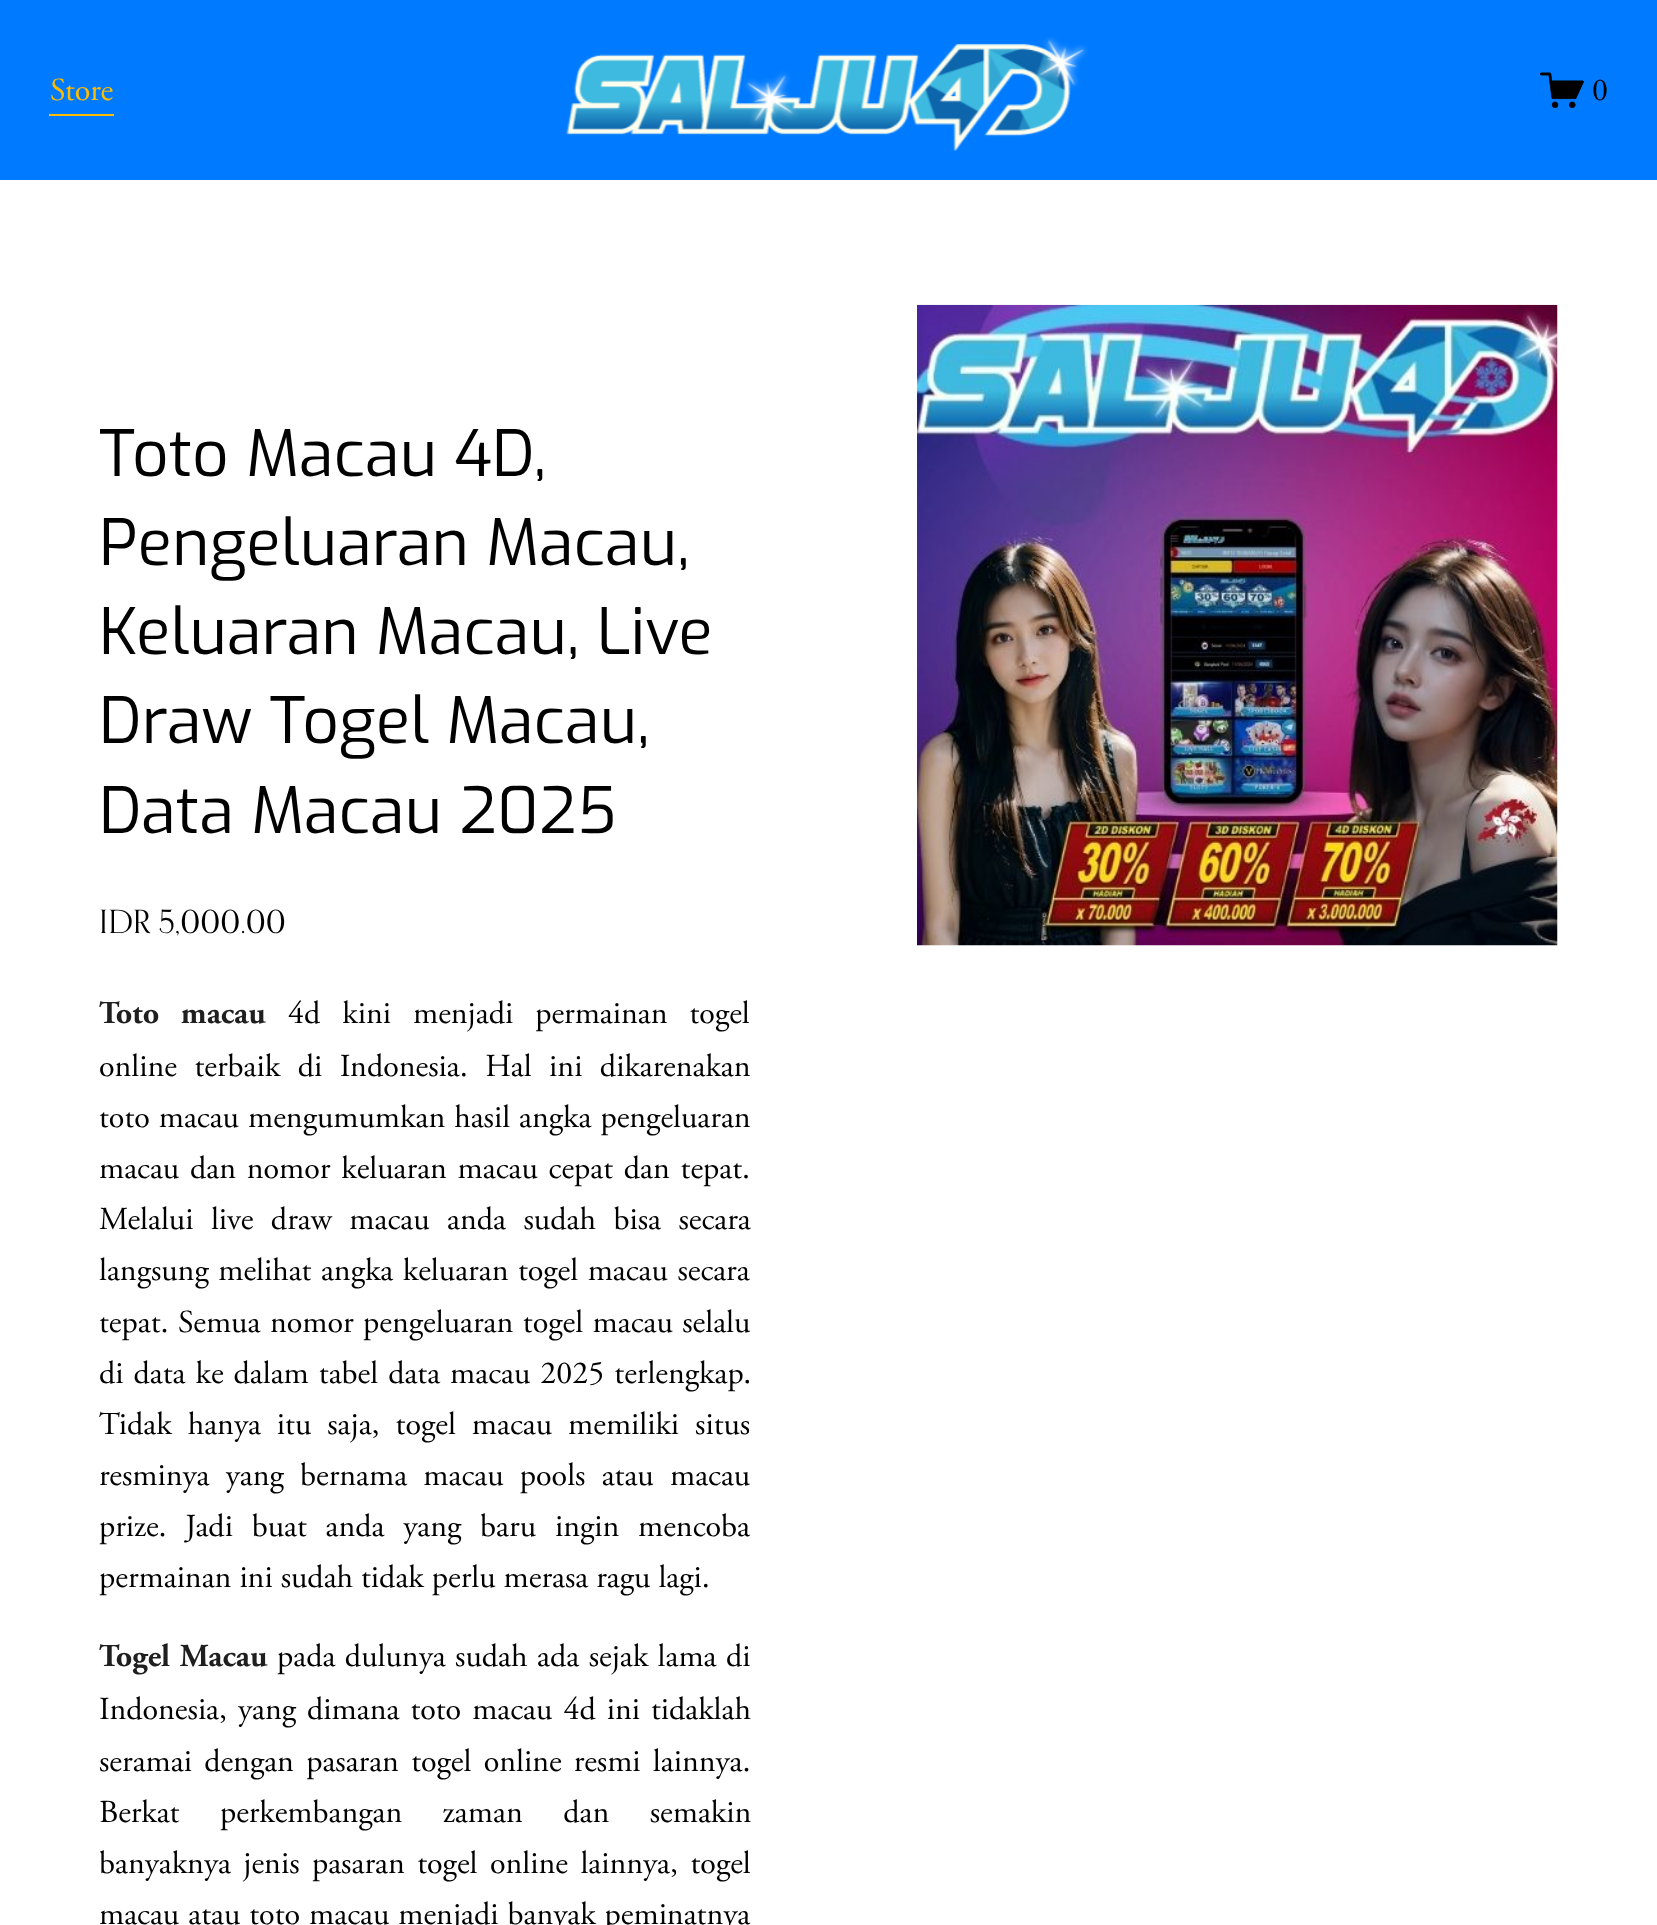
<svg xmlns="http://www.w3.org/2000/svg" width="1657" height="1925">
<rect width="100%" height="100%" fill="#fff"/>
<rect width="1657" height="180" fill="#007bff"/>
<rect x="49" y="114" width="65" height="2" fill="#fb0"/>
<text x="50" y="100" style="font-family:Adobe Garamond;font-size:32px;fill:#fb0">Store</text>
<image x="566" y="37" width="522" height="114" href="media/1.png"/>
<image x="1540" y="72" width="44" height="36" href="media/2.png"/>
<text x="1592" y="100" style="font-family:Adobe Garamond;font-size:32px;fill:#000">0</text>
<text x="99" y="476" style="font-family:Exo;font-size:63.75px;fill:#000">Toto Macau 4D,</text>
<text x="99" y="565" style="font-family:Exo;font-size:63.75px;fill:#000">Pengeluaran Macau,</text>
<text x="99" y="654" style="font-family:Exo;font-size:63.75px;fill:#000">Keluaran Macau, Live</text>
<text x="99" y="743" style="font-family:Exo;font-size:63.75px;fill:#000">Draw Togel Macau,</text>
<text x="99" y="833" style="font-family:Exo;font-size:63.75px;fill:#000">Data Macau 2025</text>
<text x="99" y="933" style="font-family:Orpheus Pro;font-size:32px;fill:#000">IDR 5,000.00</text>
<text x="99" y="1023" word-spacing="14" style="font-family:Adobe Garamond;font-size:32px;font-weight:bold;fill:#1f1f1f">Toto macau</text>
<text x="288" y="1023" word-spacing="14" style="font-family:Adobe Garamond;font-size:32px;fill:#000">4d kini menjadi permainan togel</text>
<text x="99" y="1076" word-spacing="9.5" style="font-family:Adobe Garamond;font-size:32px;fill:#000">online terbaik di Indonesia. Hal ini dikarenakan</text>
<text x="99" y="1127" word-spacing="1" style="font-family:Adobe Garamond;font-size:32px;fill:#000">toto macau mengumumkan hasil angka pengeluaran</text>
<text x="99" y="1178" word-spacing="2.75" style="font-family:Adobe Garamond;font-size:32px;fill:#000">macau dan nomor keluaran macau cepat dan tepat.</text>
<text x="99" y="1229" word-spacing="9.5" style="font-family:Adobe Garamond;font-size:32px;fill:#000">Melalui live draw macau anda sudah bisa secara</text>
<text x="99" y="1280" word-spacing="1.5" style="font-family:Adobe Garamond;font-size:32px;fill:#000">langsung melihat angka keluaran togel macau secara</text>
<text x="99" y="1332" word-spacing="1.5" style="font-family:Adobe Garamond;font-size:32px;fill:#000">tepat. Semua nomor pengeluaran togel macau selalu</text>
<text x="99" y="1383" word-spacing="2" style="font-family:Adobe Garamond;font-size:32px;fill:#000">di data ke dalam tabel data macau 2025 terlengkap.</text>
<text x="99" y="1434" word-spacing="8" style="font-family:Adobe Garamond;font-size:32px;fill:#000">Tidak hanya itu saja, togel macau memiliki situs</text>
<text x="99" y="1485" word-spacing="8.25" style="font-family:Adobe Garamond;font-size:32px;fill:#000">resminya yang bernama macau pools atau macau</text>
<text x="99" y="1536" word-spacing="10.75" style="font-family:Adobe Garamond;font-size:32px;fill:#000">prize. Jadi buat anda yang baru ingin mencoba</text>
<text x="99" y="1587" style="font-family:Adobe Garamond;font-size:32px;fill:#000">permainan ini sudah tidak perlu merasa ragu lagi.</text>
<text x="99" y="1666" word-spacing="2" style="font-family:Adobe Garamond;font-size:32px;font-weight:bold;fill:#1f1f1f">Togel Macau</text>
<text x="277" y="1666" word-spacing="1.5" style="font-family:Adobe Garamond;font-size:32px;fill:#000">pada dulunya sudah ada sejak lama di</text>
<text x="99" y="1719" word-spacing="3" style="font-family:Adobe Garamond;font-size:32px;fill:#000">Indonesia, yang dimana toto macau 4d ini tidaklah</text>
<text x="99" y="1771" word-spacing="4.25" style="font-family:Adobe Garamond;font-size:32px;fill:#000">seramai dengan pasaran togel online resmi lainnya.</text>
<text x="99" y="1822" word-spacing="32.5" style="font-family:Adobe Garamond;font-size:32px;fill:#000">Berkat perkembangan zaman dan semakin</text>
<text x="99" y="1873" word-spacing="4.5" style="font-family:Adobe Garamond;font-size:32px;fill:#000">banyaknya jenis pasaran togel online lainnya, togel</text>
<text x="99" y="1924" word-spacing="1" style="font-family:Adobe Garamond;font-size:32px;fill:#000">macau atau toto macau menjadi banyak peminatnya</text>
<image x="917" y="304" width="641" height="642" href="media/3.png"/>
</svg>
